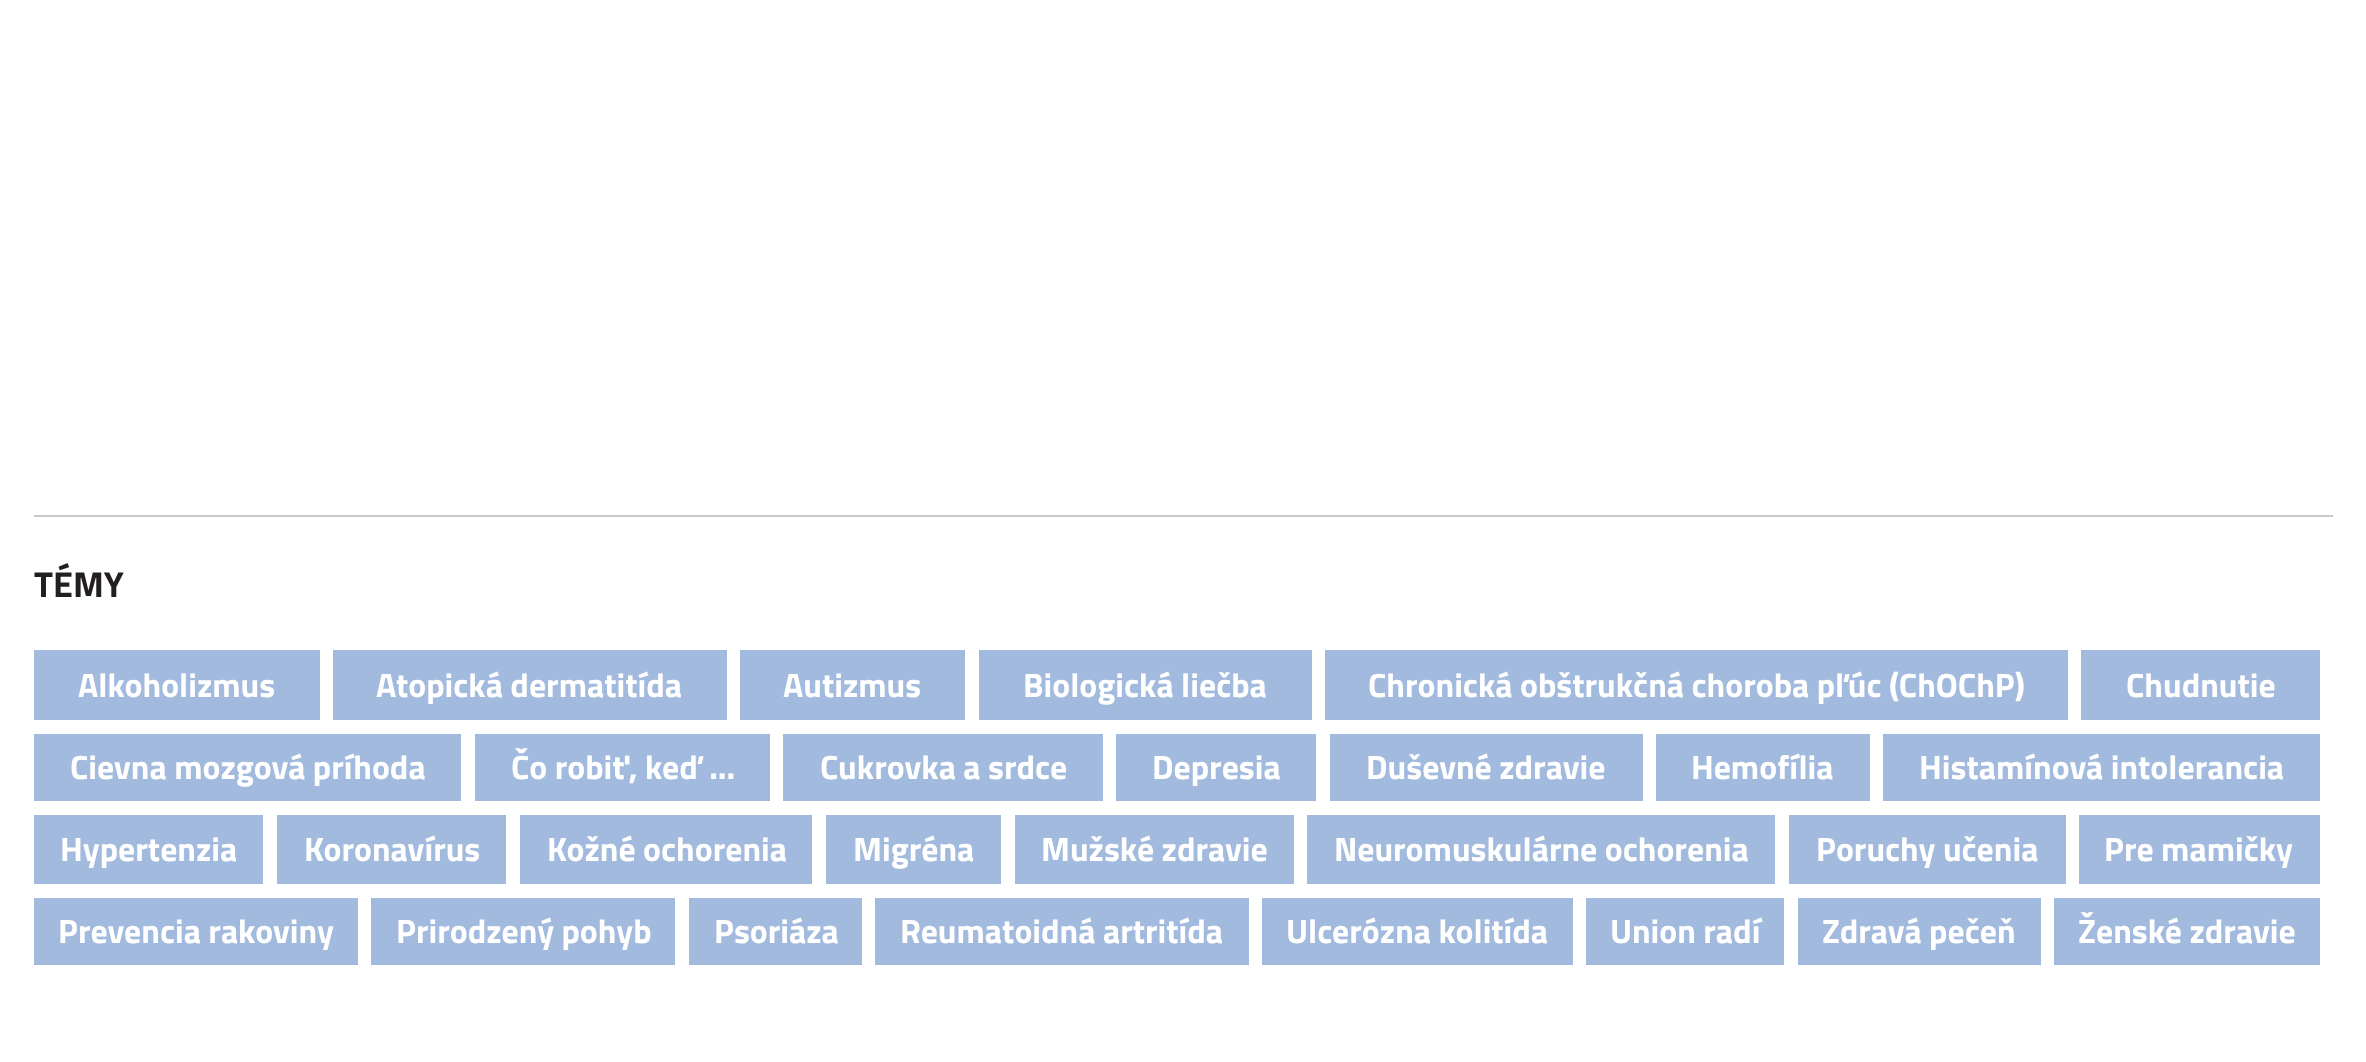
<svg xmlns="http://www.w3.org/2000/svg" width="2366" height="1062">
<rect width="100%" height="100%" fill="#fff"/>
<rect x="34" y="515" width="2299" height="2" fill="#c7c8ca"/>
<text x="34" y="597" style="font-family:Titillium Web;font-size:36px;font-weight:bold;fill:#231f20">TÉMY</text>
<rect x="34" y="650" width="286" height="70" fill="#a1badd"/>
<text x="78" y="697" style="font-family:Titillium Web;font-size:33.75px;font-weight:bold;fill:#fff">Alkoholizmus</text>
<rect x="333" y="650" width="394" height="70" fill="#a1badd"/>
<text x="376" y="697" style="font-family:Titillium Web;font-size:33.75px;font-weight:bold;fill:#fff">Atopická dermatitída</text>
<rect x="740" y="650" width="225" height="70" fill="#a1badd"/>
<text x="783" y="697" style="font-family:Titillium Web;font-size:33.75px;font-weight:bold;fill:#fff">Autizmus</text>
<rect x="979" y="650" width="333" height="70" fill="#a1badd"/>
<text x="1023" y="697" style="font-family:Titillium Web;font-size:33.75px;font-weight:bold;fill:#fff">Biologická liečba</text>
<rect x="1325" y="650" width="743" height="70" fill="#a1badd"/>
<text x="1368" y="697" style="font-family:Titillium Web;font-size:33.75px;font-weight:bold;fill:#fff">Chronická obštrukčná choroba pľúc (ChOChP)</text>
<rect x="2081" y="650" width="239" height="70" fill="#a1badd"/>
<text x="2126" y="697" style="font-family:Titillium Web;font-size:33.75px;font-weight:bold;fill:#fff">Chudnutie</text>
<rect x="34" y="734" width="427" height="67" fill="#a1badd"/>
<text x="70" y="779" style="font-family:Titillium Web;font-size:33.75px;font-weight:bold;fill:#fff">Cievna mozgová príhoda</text>
<rect x="475" y="734" width="295" height="67" fill="#a1badd"/>
<text x="511" y="779" style="font-family:Titillium Web;font-size:33.75px;font-weight:bold;fill:#fff">Čo robiť, keď ...</text>
<rect x="783" y="734" width="320" height="67" fill="#a1badd"/>
<text x="820" y="779" style="font-family:Titillium Web;font-size:33.75px;font-weight:bold;fill:#fff">Cukrovka a srdce</text>
<rect x="1116" y="734" width="200" height="67" fill="#a1badd"/>
<text x="1152" y="779" style="font-family:Titillium Web;font-size:33.75px;font-weight:bold;fill:#fff">Depresia</text>
<rect x="1330" y="734" width="313" height="67" fill="#a1badd"/>
<text x="1366" y="779" style="font-family:Titillium Web;font-size:33.75px;font-weight:bold;fill:#fff">Duševné zdravie</text>
<rect x="1656" y="734" width="214" height="67" fill="#a1badd"/>
<text x="1691" y="779" style="font-family:Titillium Web;font-size:33.75px;font-weight:bold;fill:#fff">Hemofília</text>
<rect x="1883" y="734" width="437" height="67" fill="#a1badd"/>
<text x="1919" y="779" style="font-family:Titillium Web;font-size:33.75px;font-weight:bold;fill:#fff">Histamínová intolerancia</text>
<rect x="34" y="815" width="229" height="69" fill="#a1badd"/>
<text x="60" y="861" style="font-family:Titillium Web;font-size:33.75px;font-weight:bold;fill:#fff">Hypertenzia</text>
<rect x="277" y="815" width="229" height="69" fill="#a1badd"/>
<text x="304" y="861" style="font-family:Titillium Web;font-size:33.75px;font-weight:bold;fill:#fff">Koronavírus</text>
<rect x="520" y="815" width="292" height="69" fill="#a1badd"/>
<text x="547" y="861" style="font-family:Titillium Web;font-size:33.75px;font-weight:bold;fill:#fff">Kožné ochorenia</text>
<rect x="826" y="815" width="175" height="69" fill="#a1badd"/>
<text x="853" y="861" style="font-family:Titillium Web;font-size:33.75px;font-weight:bold;fill:#fff">Migréna</text>
<rect x="1015" y="815" width="279" height="69" fill="#a1badd"/>
<text x="1041" y="861" style="font-family:Titillium Web;font-size:33.75px;font-weight:bold;fill:#fff">Mužské zdravie</text>
<rect x="1307" y="815" width="468" height="69" fill="#a1badd"/>
<text x="1334" y="861" style="font-family:Titillium Web;font-size:33.75px;font-weight:bold;fill:#fff">Neuromuskulárne ochorenia</text>
<rect x="1789" y="815" width="277" height="69" fill="#a1badd"/>
<text x="1816" y="861" style="font-family:Titillium Web;font-size:33.75px;font-weight:bold;fill:#fff">Poruchy učenia</text>
<rect x="2079" y="815" width="241" height="69" fill="#a1badd"/>
<text x="2104" y="861" style="font-family:Titillium Web;font-size:33.75px;font-weight:bold;fill:#fff">Pre mamičky</text>
<rect x="34" y="898" width="324" height="67" fill="#a1badd"/>
<text x="58" y="943" style="font-family:Titillium Web;font-size:33.75px;font-weight:bold;fill:#fff">Prevencia rakoviny</text>
<rect x="371" y="898" width="304" height="67" fill="#a1badd"/>
<text x="396" y="943" style="font-family:Titillium Web;font-size:33.75px;font-weight:bold;fill:#fff">Prirodzený pohyb</text>
<rect x="689" y="898" width="173" height="67" fill="#a1badd"/>
<text x="714" y="943" style="font-family:Titillium Web;font-size:33.75px;font-weight:bold;fill:#fff">Psoriáza</text>
<rect x="875" y="898" width="374" height="67" fill="#a1badd"/>
<text x="900" y="943" style="font-family:Titillium Web;font-size:33.75px;font-weight:bold;fill:#fff">Reumatoidná artritída</text>
<rect x="1262" y="898" width="311" height="67" fill="#a1badd"/>
<text x="1286" y="943" style="font-family:Titillium Web;font-size:33.75px;font-weight:bold;fill:#fff">Ulcerózna kolitída</text>
<rect x="1586" y="898" width="198" height="67" fill="#a1badd"/>
<text x="1610" y="943" style="font-family:Titillium Web;font-size:33.75px;font-weight:bold;fill:#fff">Union radí</text>
<rect x="1798" y="898" width="243" height="67" fill="#a1badd"/>
<text x="1822" y="943" style="font-family:Titillium Web;font-size:33.75px;font-weight:bold;fill:#fff">Zdravá pečeň</text>
<rect x="2054" y="898" width="266" height="67" fill="#a1badd"/>
<text x="2078" y="943" style="font-family:Titillium Web;font-size:33.75px;font-weight:bold;fill:#fff">Ženské zdravie</text>
</svg>
